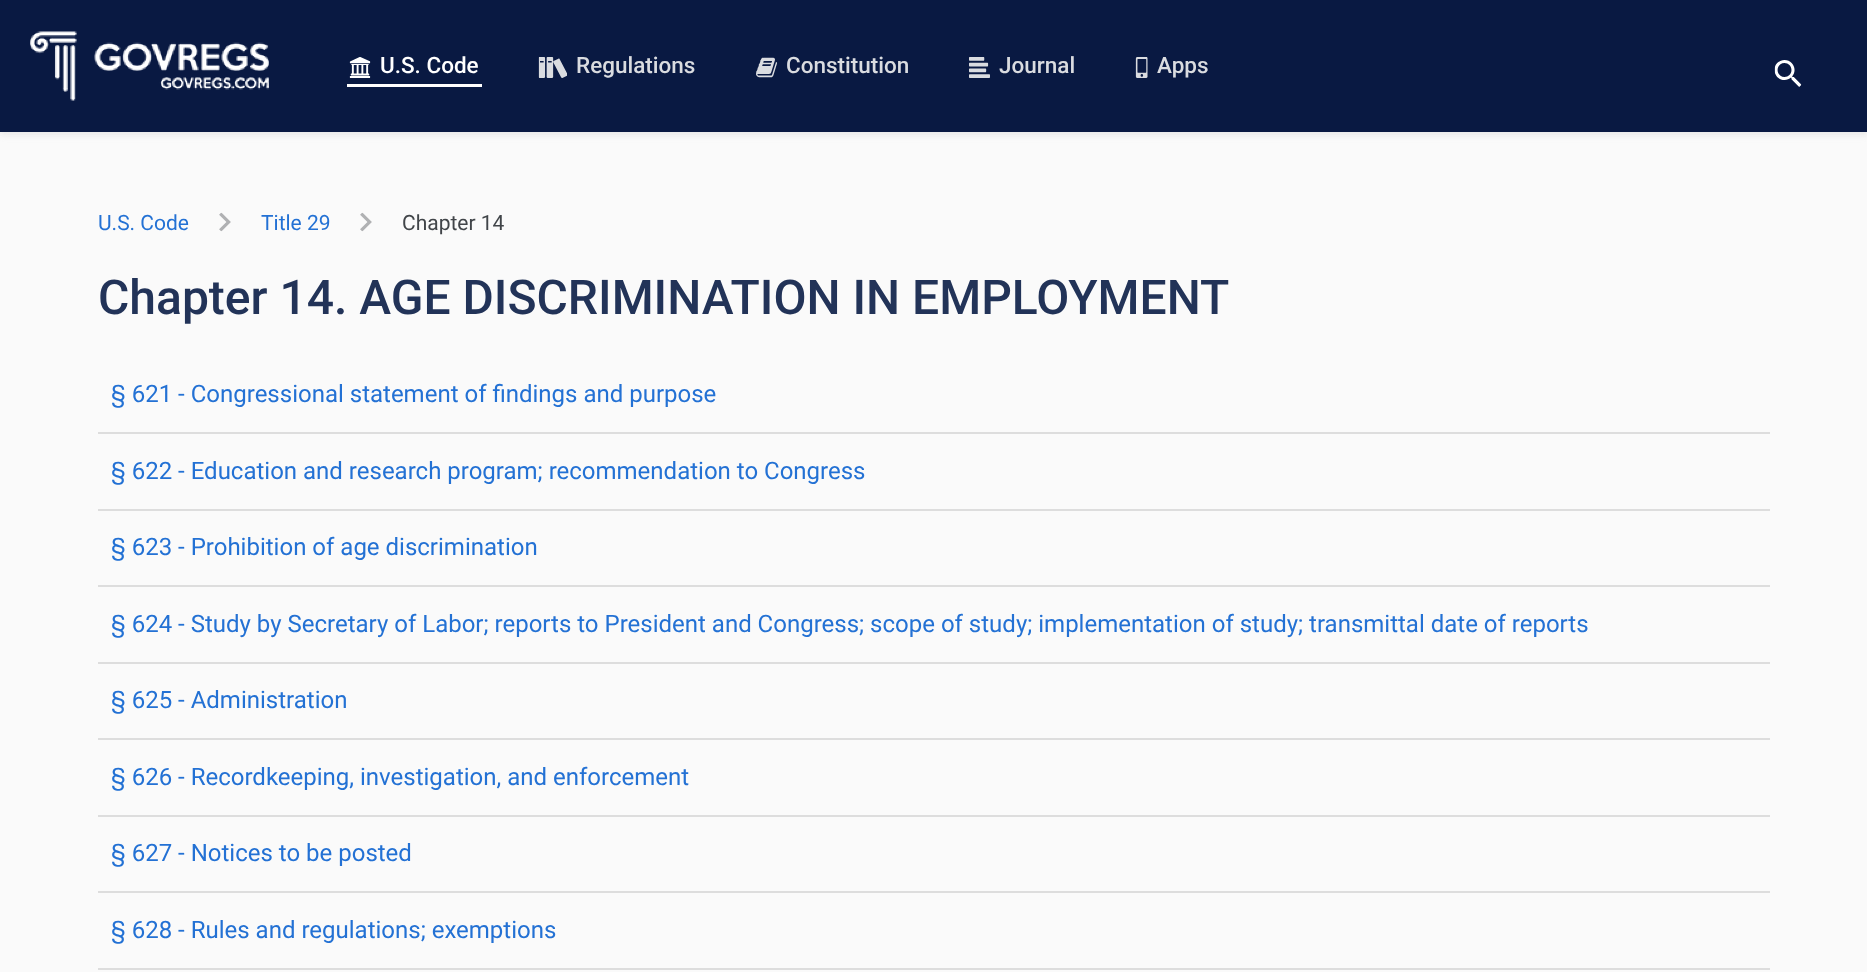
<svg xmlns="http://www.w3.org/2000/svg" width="1867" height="972">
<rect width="100%" height="100%" fill="#fafafa"/>
<rect y="3" width="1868" height="132" fill="#d7d7d780" filter="blur(3px)"/>
<rect width="1867" height="132" fill="#091942"/>
<image x="30" y="31" width="239" height="70" href="media/1.png"/>
<image x="349" y="57" width="22" height="21" href="media/2.png"/>
<text x="380" y="73" style="font-family:Roboto;font-size:22.5px;font-weight:500;fill:#fff">U.S. Code</text>
<rect x="347" y="84" width="135" height="3" fill="#fff"/>
<image x="538" y="57" width="29" height="21" href="media/3.png"/>
<text x="576" y="73" style="font-family:Roboto;font-size:22.5px;font-weight:500;fill:#dadce0">Regulations</text>
<image x="756" y="57" width="21" height="21" href="media/4.png"/>
<text x="786" y="73" style="font-family:Roboto;font-size:22.5px;font-weight:500;fill:#dadce0">Constitution</text>
<image x="969" y="57" width="21" height="21" href="media/5.png"/>
<text x="999" y="73" style="font-family:Roboto;font-size:22.5px;font-weight:500;fill:#dadce0">Journal</text>
<image x="1135" y="57" width="13" height="21" href="media/6.png"/>
<text x="1157" y="73" style="font-family:Roboto;font-size:22.5px;font-weight:500;fill:#dadce0">Apps</text>
<image x="1774" y="60" width="28" height="27" href="media/7.png"/>
<text x="98" y="230" style="font-family:Roboto;font-size:21px;fill:#2371d4">U.S. Code</text>
<image x="219" y="212" width="12" height="20" href="media/8.png"/>
<text x="261" y="230" style="font-family:Roboto;font-size:21px;fill:#2371d4">Title 29</text>
<image x="360" y="212" width="12" height="20" href="media/8.png"/>
<text x="402" y="230" style="font-family:Roboto;font-size:21px;fill:#414549">Chapter 14</text>
<text x="98" y="314" style="font-family:Roboto;font-size:48px;font-weight:500;fill:#223358">Chapter 14. AGE DISCRIMINATION IN EMPLOYMENT</text>
<rect x="98" y="432" width="1672" height="2" fill="#ddd"/>
<text x="111" y="402" style="font-family:Roboto;font-size:24px;fill:#2371d4">§ 621 - Congressional statement of findings and purpose</text>
<rect x="98" y="509" width="1672" height="2" fill="#ddd"/>
<text x="111" y="479" style="font-family:Roboto;font-size:24px;fill:#2371d4">§ 622 - Education and research program; recommendation to Congress</text>
<rect x="98" y="585" width="1672" height="2" fill="#ddd"/>
<text x="111" y="555" style="font-family:Roboto;font-size:24px;fill:#2371d4">§ 623 - Prohibition of age discrimination</text>
<rect x="98" y="662" width="1672" height="2" fill="#ddd"/>
<text x="111" y="632" style="font-family:Roboto;font-size:24px;fill:#2371d4">§ 624 - Study by Secretary of Labor; reports to President and Congress; scope of study; implementation of study; transmittal date of reports</text>
<rect x="98" y="738" width="1672" height="2" fill="#ddd"/>
<text x="111" y="708" style="font-family:Roboto;font-size:24px;fill:#2371d4">§ 625 - Administration</text>
<rect x="98" y="815" width="1672" height="2" fill="#ddd"/>
<text x="111" y="785" style="font-family:Roboto;font-size:24px;fill:#2371d4">§ 626 - Recordkeeping, investigation, and enforcement</text>
<rect x="98" y="891" width="1672" height="2" fill="#ddd"/>
<text x="111" y="861" style="font-family:Roboto;font-size:24px;fill:#2371d4">§ 627 - Notices to be posted</text>
<rect x="98" y="968" width="1672" height="2" fill="#ddd"/>
<text x="111" y="938" style="font-family:Roboto;font-size:24px;fill:#2371d4">§ 628 - Rules and regulations; exemptions</text>
</svg>
